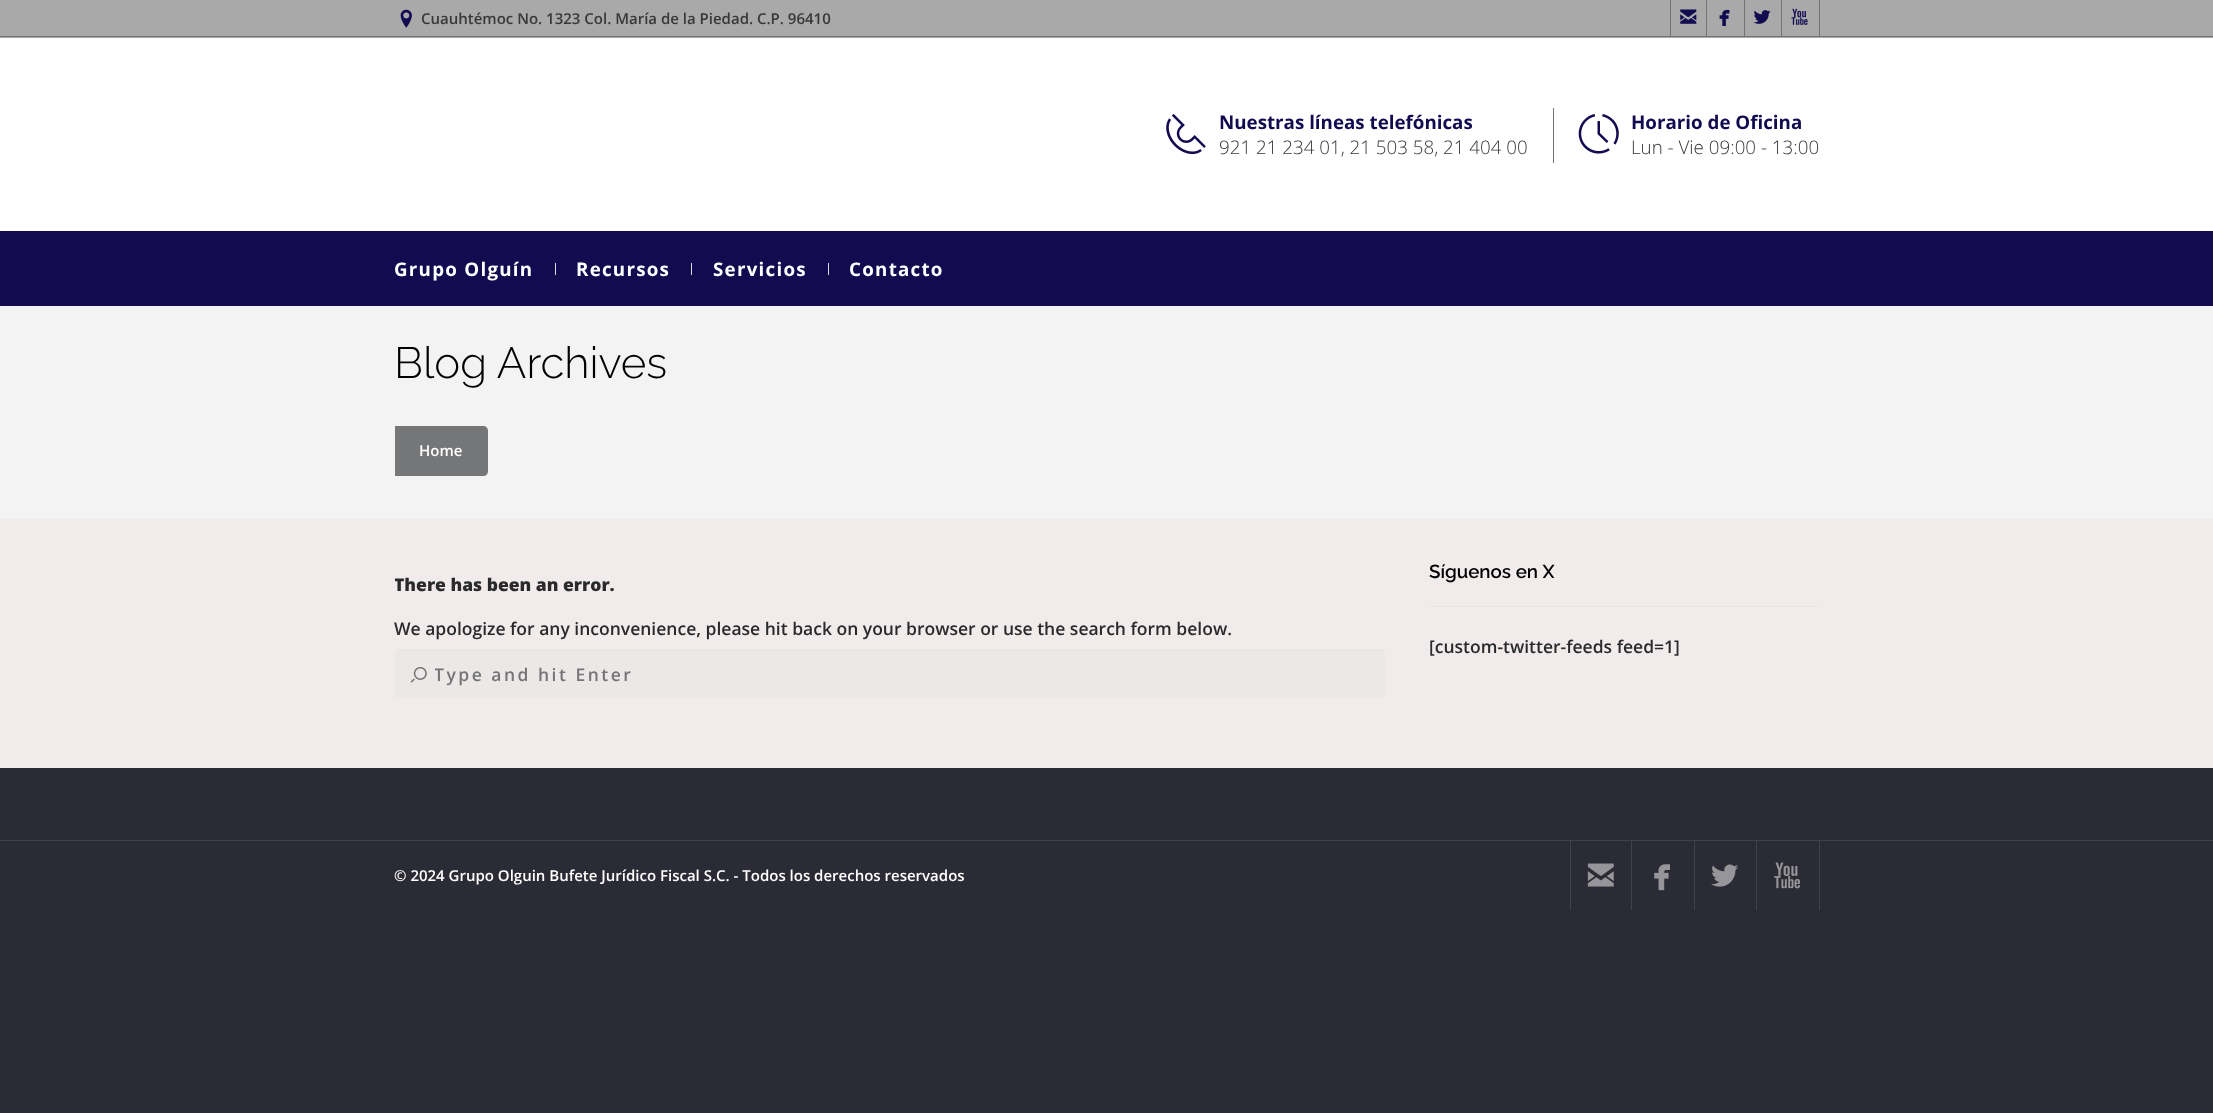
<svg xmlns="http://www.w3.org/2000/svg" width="2213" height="1113">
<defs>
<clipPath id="clip1"><rect x="395" y="563" width="990" height="205"/></clipPath>
<clipPath id="clip2"><rect x="435" y="663" width="938" height="23"/></clipPath>
</defs>
<rect width="100%" height="100%" fill="#2b2b35"/>
<rect y="38" width="2213" height="193" fill="#fff"/>
<rect width="2213" height="38" fill="#a9a9a9"/>
<rect y="36" width="2213" height="1" fill="#727273"/>
<image x="400" y="9" width="12" height="19" href="media/1.png"/>
<text x="421" y="24" style="font-family:Open Sans;font-size:15px;font-weight:600;fill:#38383a">Cuauhtémoc No. 1323 Col. María de la Piedad. C.P. 96410</text>
<rect x="1706" width="1" height="36" fill="#727273"/>
<rect x="1670" width="1" height="36" fill="#727273"/>
<image x="1680" y="9" width="17" height="15" href="media/2.png"/>
<rect x="1744" width="1" height="36" fill="#727273"/>
<image x="1719" y="9" width="11" height="17" href="media/3.png"/>
<rect x="1781" width="1" height="36" fill="#727273"/>
<image x="1753" y="10" width="18" height="14" href="media/4.png"/>
<rect x="1819" width="1" height="36" fill="#727273"/>
<image x="1791" y="8" width="17" height="17" href="media/5.png"/>
<rect x="1553" y="108" width="1" height="55" fill="#727273"/>
<image x="1166" y="113" width="40" height="42" href="media/6.png"/>
<text x="1219" y="129" style="font-family:Open Sans;font-size:18.75px;font-weight:bold;fill:#120b50">Nuestras líneas telefónicas</text>
<text x="1219" y="154" style="font-family:Open Sans;font-size:18.75px;font-weight:300;fill:#38383a">921 21 234 01, 21 503 58, 21 404 00</text>
<image x="1578" y="114" width="41" height="40" href="media/7.png"/>
<text x="1631" y="129" style="font-family:Open Sans;font-size:18.75px;font-weight:bold;fill:#120b50">Horario de Oficina</text>
<text x="1631" y="154" style="font-family:Open Sans;font-size:18.75px;font-weight:300;fill:#38383a">Lun - Vie 09:00 - 13:00</text>
<rect y="231" width="2213" height="75" fill="#120b50"/>
<text x="394" y="276" style="font-family:Open Sans;font-size:18.75px;font-weight:bold;letter-spacing:1.25px;fill:#fff">Grupo Olguín</text>
<rect x="555" y="263" width="1" height="12" fill="#dbdbdb"/>
<text x="576" y="276" style="font-family:Open Sans;font-size:18.75px;font-weight:bold;letter-spacing:1.25px;fill:#fff">Recursos</text>
<rect x="691" y="263" width="1" height="12" fill="#dbdbdb"/>
<text x="713" y="276" style="font-family:Open Sans;font-size:18.75px;font-weight:bold;letter-spacing:1.25px;fill:#fff">Servicios</text>
<rect x="828" y="263" width="1" height="12" fill="#dbdbdb"/>
<text x="849" y="276" style="font-family:Open Sans;font-size:18.75px;font-weight:bold;letter-spacing:1.25px;fill:#fff">Contacto</text>
<rect y="519" width="2213" height="249" fill="#f1ebeb"/>
<rect y="306" width="2213" height="213" fill="#f3f3f3"/>
<text x="394" y="378" style="font-family:Raleway;font-size:43.75px;font-weight:300;fill:#000">Blog Archives</text>
<path d="M395 426h88c3 0 5 2 5 5v40c0 3-2 5-5 5h-88z" fill="#757677"/>
<text x="419" y="456" style="font-family:Open Sans;font-size:15px;font-weight:600;fill:#fff">Home</text>
<g clip-path="url(#clip1)">
<text x="394" y="591" style="font-family:Open Sans;font-size:17.5px;font-weight:800;fill:#2a2a2b">There has been an error.</text>
</g>
<text x="394" y="635" style="font-family:Open Sans;font-size:17.5px;font-weight:600;fill:#2a2a2b">We apologize for any inconvenience, please hit back on your browser or use the search form below.</text>
<rect x="395" y="650" width="990" height="48" rx="4" fill="#ece8e8"/>
<image x="410" y="667" width="17" height="16" href="media/8.png"/>
<rect x="398" y="650" width="986" height="1" fill="#e1e1e1"/>
<g clip-path="url(#clip2)">
<text x="434" y="681" style="font-family:Open Sans;font-size:17.5px;font-weight:600;letter-spacing:2.5px;fill:#757575">Type and hit Enter</text>
</g>
<rect x="1430" y="606" width="390" height="1" fill="#e6e6e6"/>
<text x="1429" y="578" style="font-family:Raleway;font-size:18.75px;font-weight:600;fill:#000">Síguenos en X</text>
<text x="1429" y="653" style="font-family:Open Sans;font-size:17.5px;font-weight:600;fill:#2a2a2b">[custom-twitter-feeds feed=1]</text>
<rect y="840" width="2213" height="1" fill="#41414a"/>
<text x="394" y="881" style="font-family:Open Sans;font-size:15px;font-weight:600;fill:#fff">© 2024 Grupo Olguin Bufete Jurídico Fiscal S.C. - Todos los derechos reservados</text>
<rect x="1631" y="841" width="1" height="69" fill="#41414a"/>
<rect x="1570" y="841" width="1" height="69" fill="#41414a"/>
<image x="1587" y="863" width="27" height="24" href="media/9.png"/>
<rect x="1694" y="841" width="1" height="69" fill="#41414a"/>
<image x="1654" y="864" width="16" height="27" href="media/10.png"/>
<rect x="1756" y="841" width="1" height="69" fill="#41414a"/>
<image x="1711" y="864" width="27" height="23" href="media/11.png"/>
<rect x="1819" y="841" width="1" height="69" fill="#41414a"/>
<image x="1774" y="862" width="26" height="27" href="media/12.png"/>
</svg>
